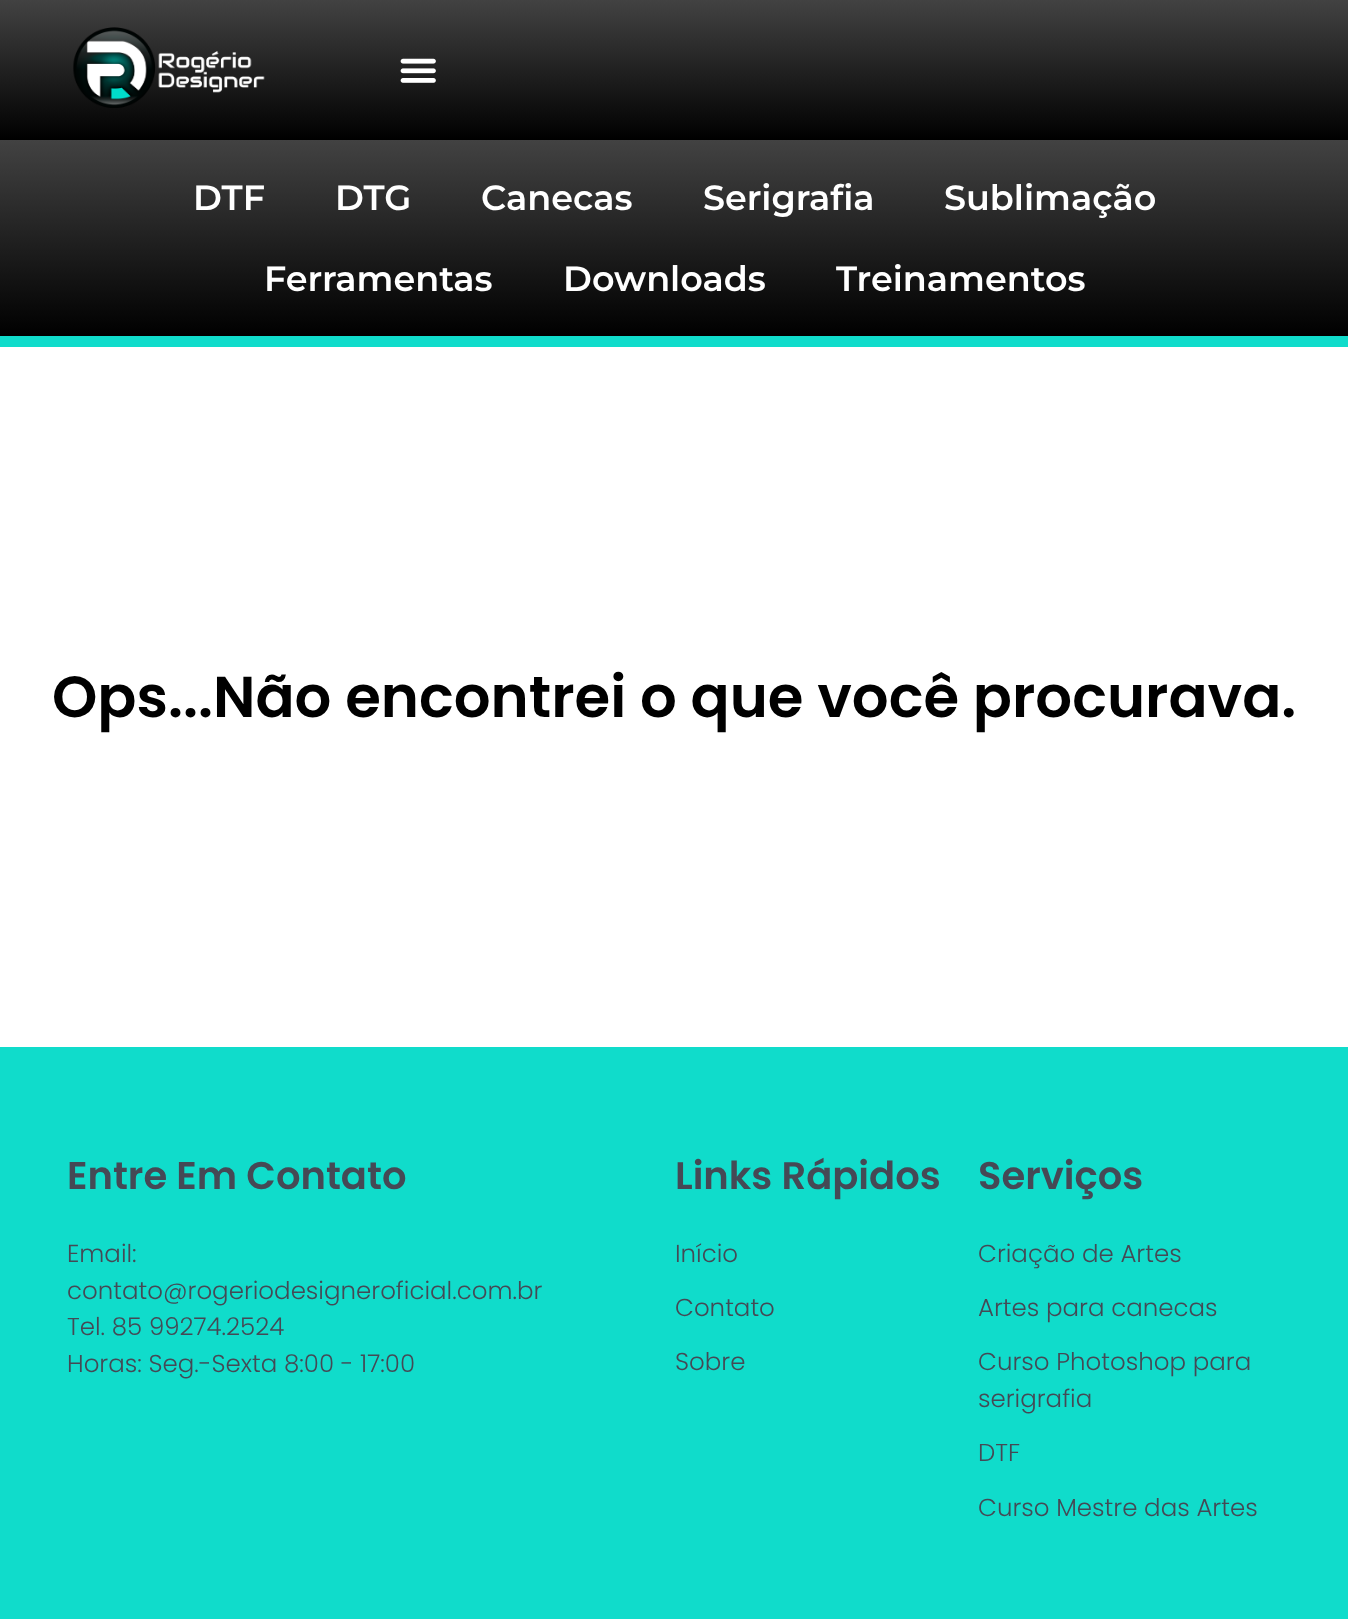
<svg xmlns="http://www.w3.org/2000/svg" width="1348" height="1619">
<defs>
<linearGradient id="g1" gradientUnits="userSpaceOnUse" x1="675" y1="0" x2="675" y2="140"><stop offset="0" stop-color="#424242"/><stop offset="1" stop-color="#000"/></linearGradient>
<linearGradient id="g2" gradientUnits="userSpaceOnUse" x1="675" y1="140" x2="675" y2="336"><stop offset="0" stop-color="#424242"/><stop offset="1" stop-color="#000"/></linearGradient>
</defs>
<rect width="100%" height="100%" fill="#fff"/>
<rect width="1348" height="140" fill="url(#g1)"/>
<image x="73" y="27" width="192" height="81" href="media/1.png"/>
<image x="400" y="58" width="36" height="25" href="media/2.png"/>
<rect y="140" width="1348" height="196" fill="url(#g2)"/>
<rect y="336" width="1348" height="11" fill="#10dccb"/>
<text x="193" y="210" style="font-family:Montserrat;font-size:35px;font-weight:600;fill:#fff">DTF</text>
<text x="335" y="210" style="font-family:Montserrat;font-size:35px;font-weight:600;fill:#fff">DTG</text>
<text x="481" y="210" style="font-family:Montserrat;font-size:35px;font-weight:600;fill:#fff">Canecas</text>
<text x="703" y="210" style="font-family:Montserrat;font-size:35px;font-weight:600;fill:#fff">Serigrafia</text>
<text x="944" y="210" style="font-family:Montserrat;font-size:35px;font-weight:600;fill:#fff">Sublimação</text>
<text x="264" y="291" style="font-family:Montserrat;font-size:35px;font-weight:600;fill:#fff">Ferramentas</text>
<text x="563" y="291" style="font-family:Montserrat;font-size:35px;font-weight:600;fill:#fff">Downloads</text>
<text x="836" y="291" style="font-family:Montserrat;font-size:35px;font-weight:600;fill:#fff">Treinamentos</text>
<text x="52" y="717" style="font-family:Poppins;font-size:57.75px;font-weight:600;fill:#000">Ops...Não encontrei o que você procurava.</text>
<rect y="1047" width="1348" height="572" fill="#10dccb"/>
<text x="67" y="1189" style="font-family:Poppins;font-size:38.5px;font-weight:600;fill:#454955">Entre Em Contato</text>
<text x="67" y="1262" style="font-family:Poppins;font-size:24.5px;font-weight:300;fill:#454955">Email:</text>
<text x="67" y="1299" style="font-family:Poppins;font-size:24.5px;font-weight:300;fill:#454955">contato@rogeriodesigneroficial.com.br</text>
<text x="67" y="1335" style="font-family:Poppins;font-size:24.5px;font-weight:300;fill:#454955">Tel. 85 99274.2524</text>
<text x="67" y="1372" style="font-family:Poppins;font-size:24.5px;font-weight:300;fill:#454955">Horas: Seg.-Sexta 8:00 - 17:00</text>
<text x="675" y="1189" style="font-family:Poppins;font-size:38.5px;font-weight:600;fill:#454955">Links Rápidos</text>
<text x="675" y="1262" style="font-family:Poppins;font-size:24.5px;font-weight:300;fill:#454955">Início</text>
<text x="675" y="1316" style="font-family:Poppins;font-size:24.5px;font-weight:300;fill:#454955">Contato</text>
<text x="675" y="1370" style="font-family:Poppins;font-size:24.5px;font-weight:300;fill:#454955">Sobre</text>
<text x="978" y="1189" style="font-family:Poppins;font-size:38.5px;font-weight:600;fill:#454955">Serviços</text>
<text x="978" y="1262" style="font-family:Poppins;font-size:24.5px;font-weight:300;fill:#454955">Criação de Artes</text>
<text x="978" y="1316" style="font-family:Poppins;font-size:24.5px;font-weight:300;fill:#454955">Artes para canecas</text>
<text x="978" y="1370" style="font-family:Poppins;font-size:24.5px;font-weight:300;fill:#454955">Curso Photoshop para</text>
<text x="978" y="1407" style="font-family:Poppins;font-size:24.5px;font-weight:300;fill:#454955">serigrafia</text>
<text x="978" y="1461" style="font-family:Poppins;font-size:24.5px;font-weight:300;fill:#454955">DTF</text>
<text x="978" y="1516" style="font-family:Poppins;font-size:24.5px;font-weight:300;fill:#454955">Curso Mestre das Artes</text>
</svg>
